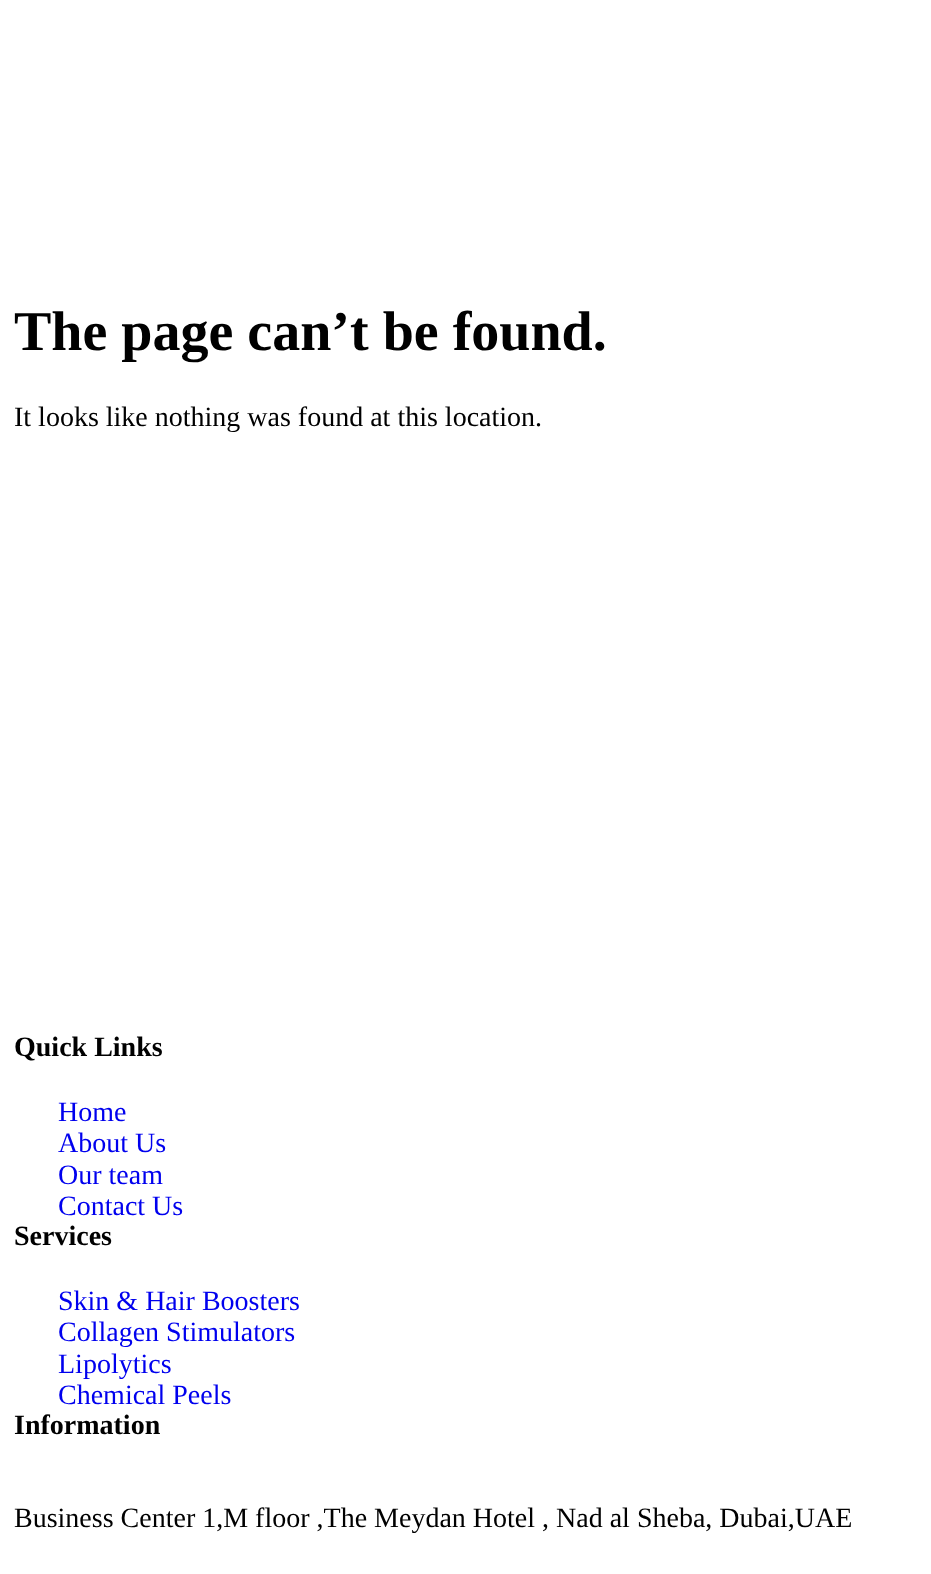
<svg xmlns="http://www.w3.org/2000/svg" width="931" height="1574">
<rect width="100%" height="100%" fill="#fff"/>
<text x="14" y="350" style="font-family:Liberation Serif;font-size:56px;font-weight:bold;fill:#000">The page can’t be found.</text>
<text x="14" y="426" style="font-family:Liberation Serif;font-size:28px;fill:#000">It looks like nothing was found at this location.</text>
<text x="14" y="1056" style="font-family:Liberation Serif;font-size:28px;font-weight:bold;fill:#000">Quick Links</text>
<text x="58" y="1121" style="font-family:Liberation Serif;font-size:28px;fill:#00e">Home</text>
<text x="58" y="1152" style="font-family:Liberation Serif;font-size:28px;fill:#00e">About Us</text>
<text x="58" y="1184" style="font-family:Liberation Serif;font-size:28px;fill:#00e">Our team</text>
<text x="58" y="1215" style="font-family:Liberation Serif;font-size:28px;fill:#00e">Contact Us</text>
<text x="14" y="1245" style="font-family:Liberation Serif;font-size:28px;font-weight:bold;fill:#000">Services</text>
<text x="58" y="1310" style="font-family:Liberation Serif;font-size:28px;fill:#00e">Skin &amp; Hair Boosters</text>
<text x="58" y="1341" style="font-family:Liberation Serif;font-size:28px;fill:#00e">Collagen Stimulators</text>
<text x="58" y="1373" style="font-family:Liberation Serif;font-size:28px;fill:#00e">Lipolytics</text>
<text x="58" y="1404" style="font-family:Liberation Serif;font-size:28px;fill:#00e">Chemical Peels</text>
<text x="14" y="1434" style="font-family:Liberation Serif;font-size:28px;font-weight:bold;fill:#000">Information</text>
<text x="14" y="1527" style="font-family:Liberation Serif;font-size:28px;fill:#000">Business Center 1,M floor ,The Meydan Hotel , Nad al Sheba, Dubai,UAE</text>
</svg>
